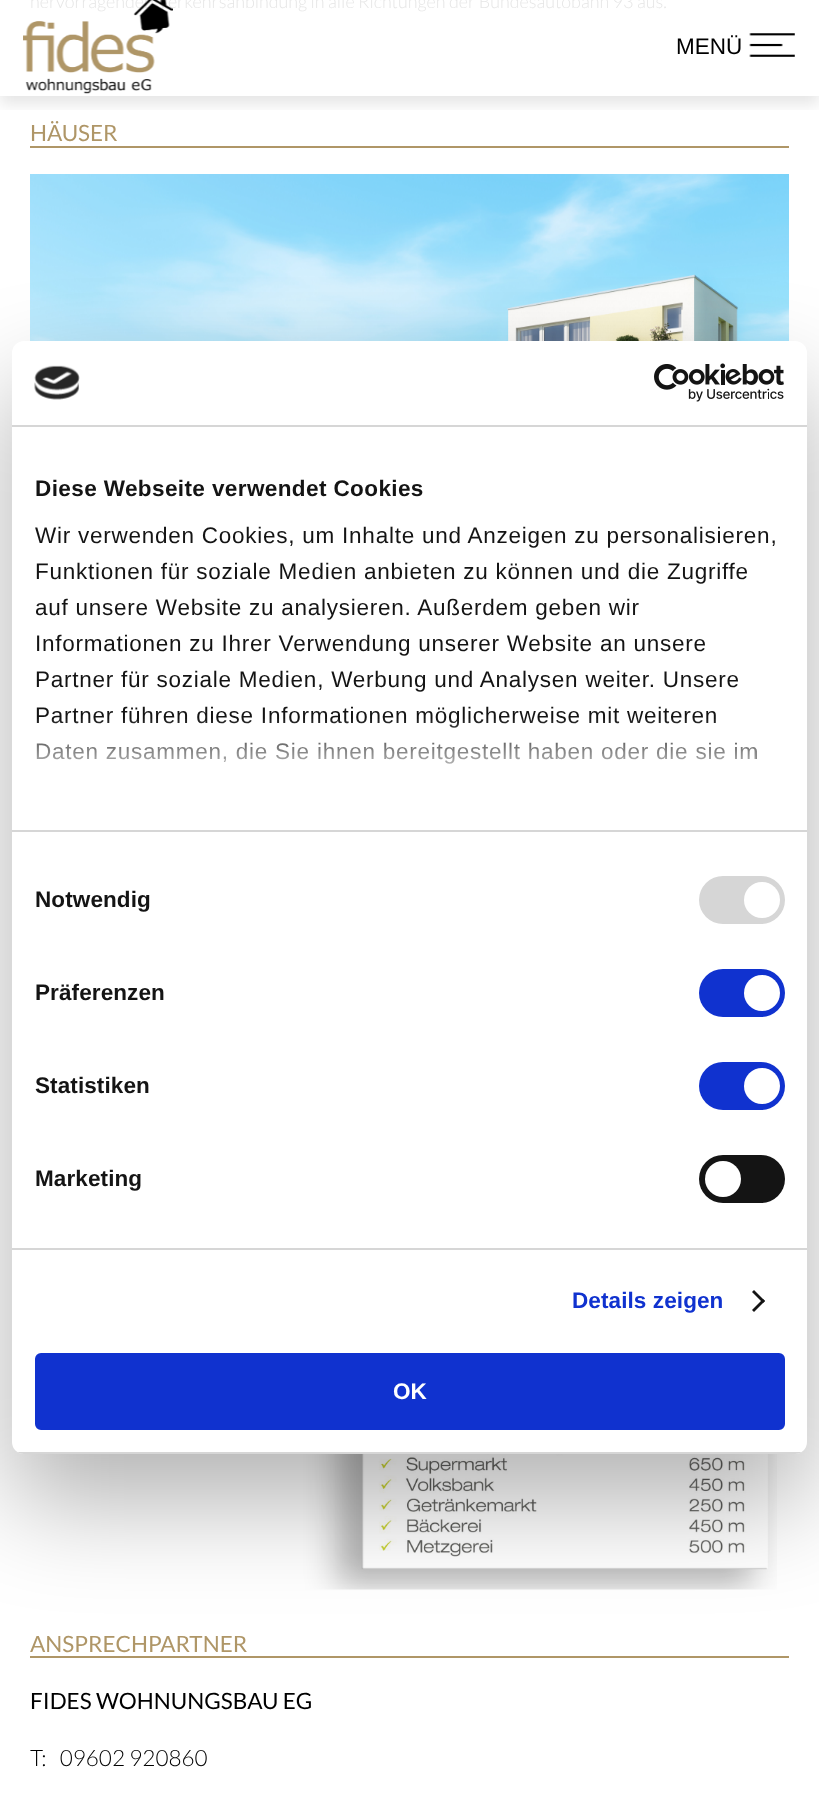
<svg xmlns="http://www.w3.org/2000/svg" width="819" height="1793">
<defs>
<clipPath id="clip1"><rect x="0" y="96" width="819" height="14"/></clipPath>
<linearGradient id="g1" gradientUnits="userSpaceOnUse" x1="400" y1="830" x2="400" y2="717"><stop offset="0" stop-color="#fff"/><stop offset="0.5" stop-color="#fff" stop-opacity="0.8"/><stop offset="1" stop-color="#fff" stop-opacity="0"/></linearGradient>
<clipPath id="clip2"><rect x="12" y="341" width="795" height="1113" rx="12"/></clipPath>
</defs>
<rect width="100%" height="100%" fill="#fff"/>
<text x="30" y="8" style="font-family:Lato;font-size:18px;font-weight:300;fill:#e6e6e6">hervorragenden Verkehrsanbindung in alle Richtungen der Bundesautobahn 93 aus.</text>
<rect x="30" y="146" width="759" height="2" fill="#af9667"/>
<text x="30" y="141" style="font-family:Lato;font-size:22.5px;fill:#af9667">HÄUSER</text>
<image x="30" y="174" width="759" height="167" href="media/1.png"/>
<image x="30" y="1454" width="747" height="136" href="media/2.png"/>
<rect x="30" y="1656" width="759" height="2" fill="#af9667"/>
<text x="30" y="1652" style="font-family:Lato;font-size:22.5px;fill:#af9667">ANSPRECHPARTNER</text>
<text x="30" y="1709" style="font-family:Lato;font-size:22.5px;fill:#000">FIDES WOHNUNGSBAU EG</text>
<text x="30" y="1766" style="font-family:Lato;font-size:22.5px;font-weight:300;fill:#000" xml:space="preserve">T:   09602 920860</text>
<g clip-path="url(#clip1)">
<rect y="8" width="819" height="96" fill="#0000001a" filter="blur(7.5px)"/>
</g>
<image x="23" y="0" width="150" height="94" href="media/3.png"/>
<image x="749" y="33" width="46" height="24" href="media/4.png"/>
<text x="676" y="54" style="font-family:Liberation Sans;font-size:22.5px;fill:#000">MENÜ</text>
<rect x="12" y="389" width="795" height="1113" rx="12" fill="#0000004d" filter="blur(51px)"/>
<rect x="12" y="341" width="795" height="1113" rx="12" fill="#fff"/>
<rect x="12" y="425" width="795" height="2" fill="#d6d6d6"/>
<image x="34" y="365" width="46" height="35" href="media/5.png"/>
<image x="654" y="363" width="130" height="39" href="media/6.png"/>
<rect x="12" y="830" width="795" height="2" fill="#d6d6d6"/>
<text x="35" y="496" style="font-family:Liberation Sans;font-size:22.5px;font-weight:bold;letter-spacing:0.4px;fill:#141414">Diese Webseite verwendet Cookies</text>
<text x="35" y="543" style="font-family:Liberation Sans;font-size:22.5px;letter-spacing:0.75px;fill:#141414">Wir verwenden Cookies, um Inhalte und Anzeigen zu personalisieren,</text>
<text x="35" y="579" style="font-family:Liberation Sans;font-size:22.5px;letter-spacing:0.75px;fill:#141414">Funktionen für soziale Medien anbieten zu können und die Zugriffe</text>
<text x="35" y="615" style="font-family:Liberation Sans;font-size:22.5px;letter-spacing:0.75px;fill:#141414">auf unsere Website zu analysieren. Außerdem geben wir</text>
<text x="35" y="651" style="font-family:Liberation Sans;font-size:22.5px;letter-spacing:0.75px;fill:#141414">Informationen zu Ihrer Verwendung unserer Website an unsere</text>
<text x="35" y="687" style="font-family:Liberation Sans;font-size:22.5px;letter-spacing:0.75px;fill:#141414">Partner für soziale Medien, Werbung und Analysen weiter. Unsere</text>
<text x="35" y="723" style="font-family:Liberation Sans;font-size:22.5px;letter-spacing:0.75px;fill:#141414">Partner führen diese Informationen möglicherweise mit weiteren</text>
<text x="35" y="759" style="font-family:Liberation Sans;font-size:22.5px;letter-spacing:0.75px;fill:#141414">Daten zusammen, die Sie ihnen bereitgestellt haben oder die sie im</text>
<rect x="36" y="719" width="720" height="45" fill="url(#g1)"/>
<rect x="12" y="1248" width="795" height="2" fill="#d6d6d6"/>
<text x="35" y="907" style="font-family:Liberation Sans;font-size:22.5px;font-weight:bold;letter-spacing:0.1px;fill:#141414">Notwendig</text>
<rect x="699" y="876" width="86" height="48" rx="24" fill="#d6d6d6"/>
<circle cx="762" cy="900" r="18" fill="#fff"/>
<text x="35" y="1000" style="font-family:Liberation Sans;font-size:22.5px;font-weight:bold;letter-spacing:0.1px;fill:#141414">Präferenzen</text>
<rect x="699" y="969" width="86" height="48" rx="24" fill="#1032cf"/>
<circle cx="762" cy="993" r="18" fill="#fff"/>
<text x="35" y="1093" style="font-family:Liberation Sans;font-size:22.5px;font-weight:bold;letter-spacing:0.1px;fill:#141414">Statistiken</text>
<rect x="699" y="1062" width="86" height="48" rx="24" fill="#1032cf"/>
<circle cx="762" cy="1086" r="18" fill="#fff"/>
<text x="35" y="1186" style="font-family:Liberation Sans;font-size:22.5px;font-weight:bold;letter-spacing:0.1px;fill:#141414">Marketing</text>
<rect x="699" y="1155" width="86" height="48" rx="24" fill="#141414"/>
<circle cx="723" cy="1179" r="18" fill="#fff"/>
<text x="572" y="1308" style="font-family:Liberation Sans;font-size:22.5px;font-weight:bold;letter-spacing:0.1px;fill:#1032cf">Details zeigen</text>
<path d="M754 1290l11 11l-2 2l-11-11z" fill="#141414"/>
<path d="M763 1299l2 2l-11 11l-2-2z" fill="#141414"/>
<g clip-path="url(#clip2)">
<rect x="12" y="1452" width="795" height="2" fill="#d6d6d6"/>
</g>
<rect x="36.5" y="1354.5" width="747" height="74" rx="4.5" fill="#1032cf" stroke="#1032cf" stroke-width="3"/>
<text x="393" y="1399" style="font-family:Liberation Sans;font-size:22.5px;font-weight:bold;fill:#fff">OK</text>
</svg>
